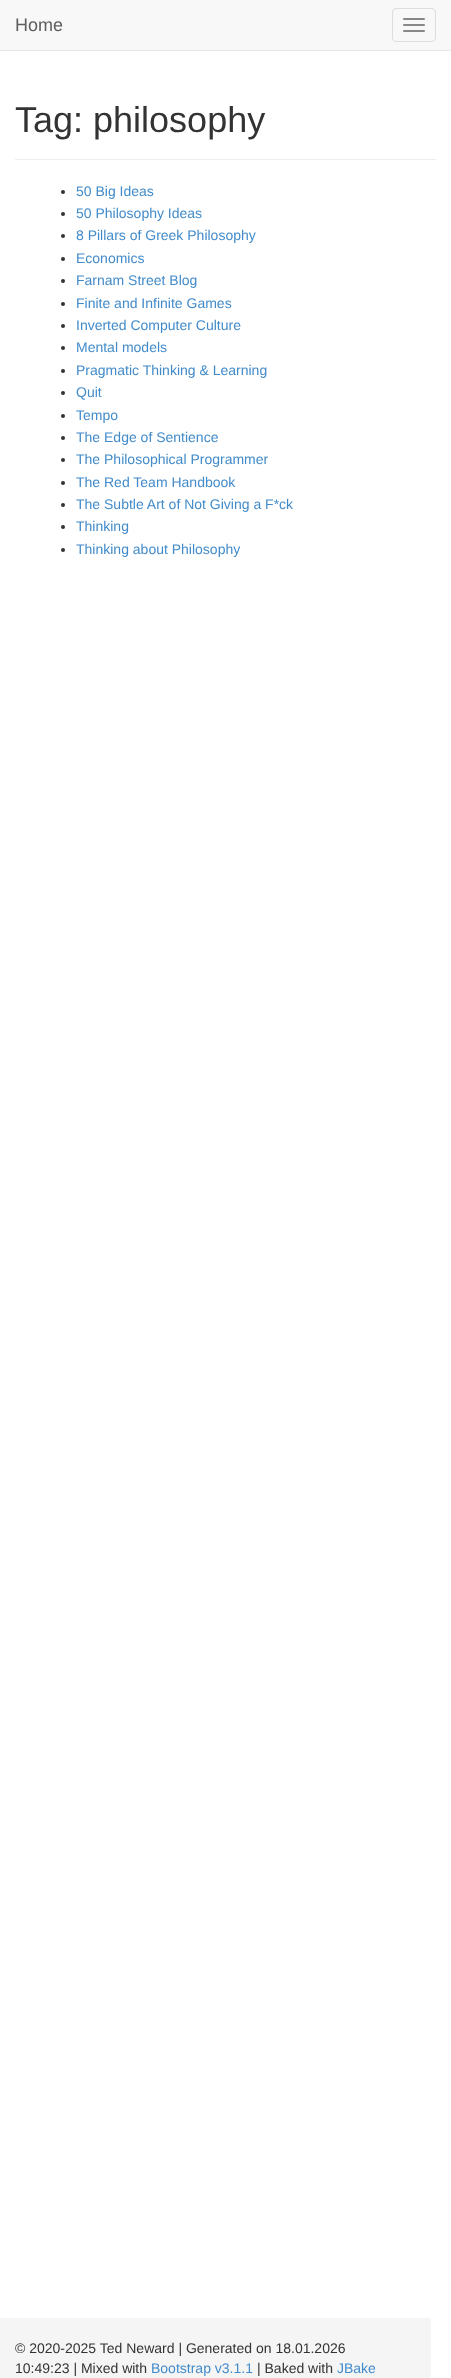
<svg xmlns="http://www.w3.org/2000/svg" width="451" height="2378">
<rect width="100%" height="100%" fill="#fff"/>
<rect width="451" height="50" fill="#f8f8f8"/>
<rect y="50" width="451" height="1" fill="#e7e7e7"/>
<text x="15" y="31" style="font-family:Liberation Sans;font-size:18px;fill:#5e5e5e">Home</text>
<rect x="392.5" y="8.5" width="43" height="33" rx="3.5" fill="none" stroke="#ddd"/>
<rect x="403" y="18" width="22" height="2" rx="1" fill="#888"/>
<rect x="403" y="24" width="22" height="2" rx="1" fill="#888"/>
<rect x="403" y="30" width="22" height="2" rx="1" fill="#888"/>
<rect x="15" y="159" width="421" height="1" fill="#eee"/>
<text x="15" y="132" style="font-family:Liberation Sans;font-size:36px;fill:#333">Tag: philosophy</text>
<circle cx="63" cy="192" r="2" fill="#333"/>
<text x="76" y="196" style="font-family:Liberation Sans;font-size:14px;fill:#428bca">50 Big Ideas</text>
<circle cx="63" cy="214" r="2" fill="#333"/>
<text x="76" y="218" style="font-family:Liberation Sans;font-size:14px;fill:#428bca">50 Philosophy Ideas</text>
<circle cx="63" cy="236" r="2" fill="#333"/>
<text x="76" y="240" style="font-family:Liberation Sans;font-size:14px;fill:#428bca">8 Pillars of Greek Philosophy</text>
<circle cx="63" cy="259" r="2" fill="#333"/>
<text x="76" y="263" style="font-family:Liberation Sans;font-size:14px;fill:#428bca">Economics</text>
<circle cx="63" cy="281" r="2" fill="#333"/>
<text x="76" y="285" style="font-family:Liberation Sans;font-size:14px;fill:#428bca">Farnam Street Blog</text>
<circle cx="63" cy="304" r="2" fill="#333"/>
<text x="76" y="308" style="font-family:Liberation Sans;font-size:14px;fill:#428bca">Finite and Infinite Games</text>
<circle cx="63" cy="326" r="2" fill="#333"/>
<text x="76" y="330" style="font-family:Liberation Sans;font-size:14px;fill:#428bca">Inverted Computer Culture</text>
<circle cx="63" cy="348" r="2" fill="#333"/>
<text x="76" y="352" style="font-family:Liberation Sans;font-size:14px;fill:#428bca">Mental models</text>
<circle cx="63" cy="371" r="2" fill="#333"/>
<text x="76" y="375" style="font-family:Liberation Sans;font-size:14px;fill:#428bca">Pragmatic Thinking &amp; Learning</text>
<circle cx="63" cy="393" r="2" fill="#333"/>
<text x="76" y="397" style="font-family:Liberation Sans;font-size:14px;fill:#428bca">Quit</text>
<circle cx="63" cy="416" r="2" fill="#333"/>
<text x="76" y="420" style="font-family:Liberation Sans;font-size:14px;fill:#428bca">Tempo</text>
<circle cx="63" cy="438" r="2" fill="#333"/>
<text x="76" y="442" style="font-family:Liberation Sans;font-size:14px;fill:#428bca">The Edge of Sentience</text>
<circle cx="63" cy="460" r="2" fill="#333"/>
<text x="76" y="464" style="font-family:Liberation Sans;font-size:14px;fill:#428bca">The Philosophical Programmer</text>
<circle cx="63" cy="483" r="2" fill="#333"/>
<text x="76" y="487" style="font-family:Liberation Sans;font-size:14px;fill:#428bca">The Red Team Handbook</text>
<circle cx="63" cy="505" r="2" fill="#333"/>
<text x="76" y="509" style="font-family:Liberation Sans;font-size:14px;fill:#428bca">The Subtle Art of Not Giving a F*ck</text>
<circle cx="63" cy="527" r="2" fill="#333"/>
<text x="76" y="531" style="font-family:Liberation Sans;font-size:14px;fill:#428bca">Thinking</text>
<circle cx="63" cy="550" r="2" fill="#333"/>
<text x="76" y="554" style="font-family:Liberation Sans;font-size:14px;fill:#428bca">Thinking about Philosophy</text>
<rect y="2318" width="431" height="60" fill="#f5f5f5"/>
<text x="15" y="2353" style="font-family:Liberation Sans;font-size:14px;fill:#333">© 2020-2025 Ted Neward | Generated on 18.01.2026</text>
<text x="15" y="2373" style="font-family:Liberation Sans;font-size:14px;fill:#333">10:49:23 | Mixed with</text>
<text x="151" y="2373" style="font-family:Liberation Sans;font-size:14px;fill:#428bca">Bootstrap v3.1.1</text>
<text x="257" y="2373" style="font-family:Liberation Sans;font-size:14px;fill:#333">| Baked with</text>
<text x="337" y="2373" style="font-family:Liberation Sans;font-size:14px;fill:#428bca">JBake</text>
</svg>
